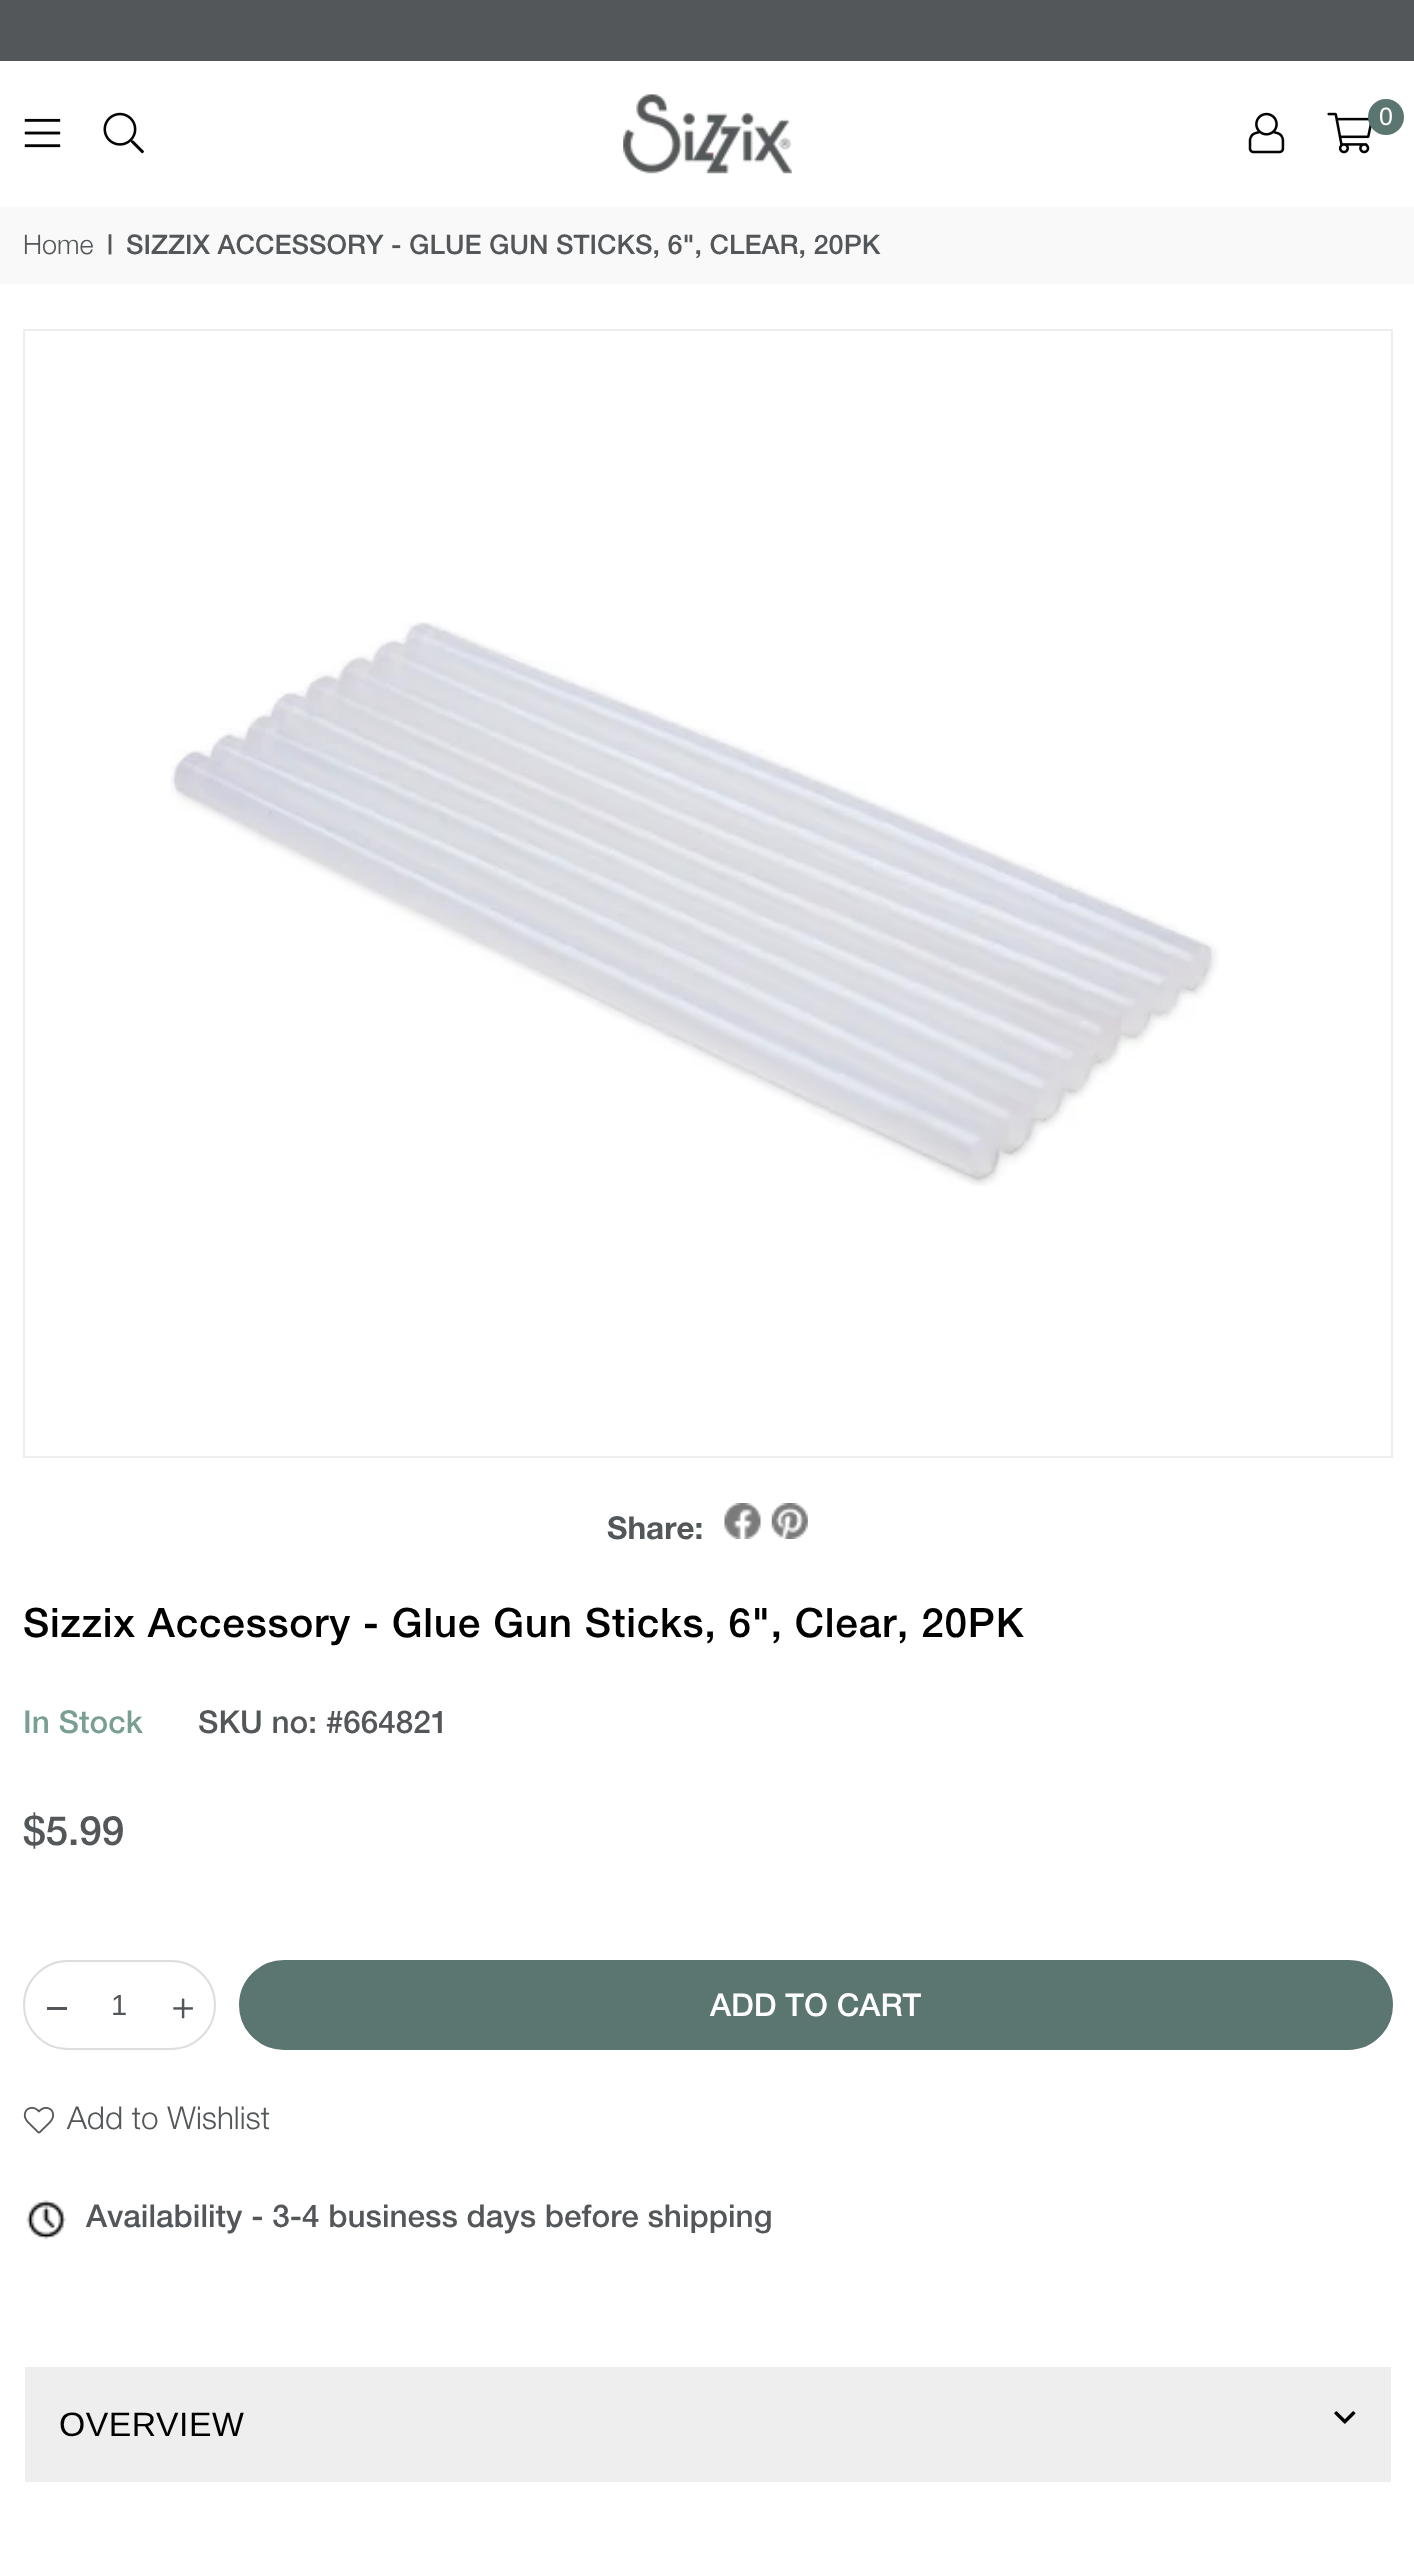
<svg xmlns="http://www.w3.org/2000/svg" width="1414" height="2567">
<rect width="100%" height="100%" fill="#fff"/>
<rect width="1414" height="61" fill="#545759"/>
<image x="24" y="118" width="37" height="30" href="media/1.png"/>
<image x="103" y="112" width="41" height="42" href="media/2.png"/>
<image x="623" y="94" width="169" height="80" href="media/3.png"/>
<image x="1248" y="112" width="37" height="42" href="media/4.png"/>
<image x="1327" y="112" width="45" height="42" href="media/5.png"/>
<circle cx="1386" cy="117" r="18" fill="#5b7570"/>
<text x="1379" y="125" style="font-family:Liberation Sans;font-size:25px;fill:#fff">0</text>
<rect y="207" width="1414" height="77" fill="#f9f9f9"/>
<text x="23" y="254" style="font-family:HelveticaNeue;font-size:27px;font-weight:300;fill:#545759">Home</text>
<text x="107" y="254" style="font-family:HelveticaNeue;font-size:27px;font-weight:500;fill:#545759">|</text>
<text x="126" y="254" style="font-family:HelveticaNeue;font-size:27px;font-weight:500;fill:#545759">SIZZIX ACCESSORY - GLUE GUN STICKS, 6", CLEAR, 20PK</text>
<rect x="24" y="330" width="1368" height="1127" fill="none" stroke="#eee" stroke-width="2"/>
<image x="170" y="621" width="1049" height="565" href="media/6.png"/>
<text x="607" y="1539" style="font-family:HelveticaNeue;font-size:31.5px;font-weight:bold;fill:#545759">Share:</text>
<image x="724" y="1503" width="37" height="36" href="media/7.png"/>
<image x="771" y="1503" width="37" height="36" href="media/8.png"/>
<text x="23" y="1637" style="font-family:HelveticaNeue;font-size:40.5px;font-weight:500;letter-spacing:0.8px;fill:#000">Sizzix Accessory - Glue Gun Sticks, 6", Clear, 20PK</text>
<text x="23" y="1733" style="font-family:HelveticaNeue;font-size:31.5px;font-weight:500;fill:#789f90">In Stock</text>
<text x="198" y="1733" style="font-family:HelveticaNeue;font-size:31.5px;font-weight:500;fill:#545759">SKU no: #664821</text>
<text x="23" y="1845" style="font-family:HelveticaNeue;font-size:40.5px;font-weight:500;fill:#545759">$5.99</text>
<rect x="24" y="1961" width="191" height="88" rx="44" fill="none" stroke="#ddd" stroke-width="2"/>
<rect x="47" y="2007" width="20" height="3" fill="#545759"/>
<text x="111" y="2015" style="font-family:Liberation Sans;font-size:29px;fill:#545759">1</text>
<image x="173" y="1998" width="20" height="21" href="media/9.png"/>
<rect x="240" y="1961" width="1152" height="88" rx="44" fill="#5b7570" stroke="#5b7570" stroke-width="2"/>
<text x="710" y="2016" style="font-family:HelveticaNeue;font-size:31.5px;font-weight:500;fill:#fff">ADD TO CART</text>
<image x="23" y="2106" width="31" height="28" href="media/10.png"/>
<text x="67" y="2129" style="font-family:HelveticaNeue;font-size:31.5px;font-weight:300;fill:#545759">Add to Wishlist</text>
<image x="26" y="2200" width="40" height="40" href="media/11.png"/>
<text x="86" y="2227" style="font-family:HelveticaNeue;font-size:31.5px;font-weight:500;fill:#545759">Availability - 3-4 business days before shipping</text>
<rect x="25" y="2367" width="1366" height="115" fill="#eee"/>
<text x="59" y="2436" style="font-family:Liberation Sans;font-size:33.75px;letter-spacing:0.5px;fill:#000">OVERVIEW</text>
<image x="1334" y="2411" width="22" height="13" href="media/12.png"/>
</svg>
